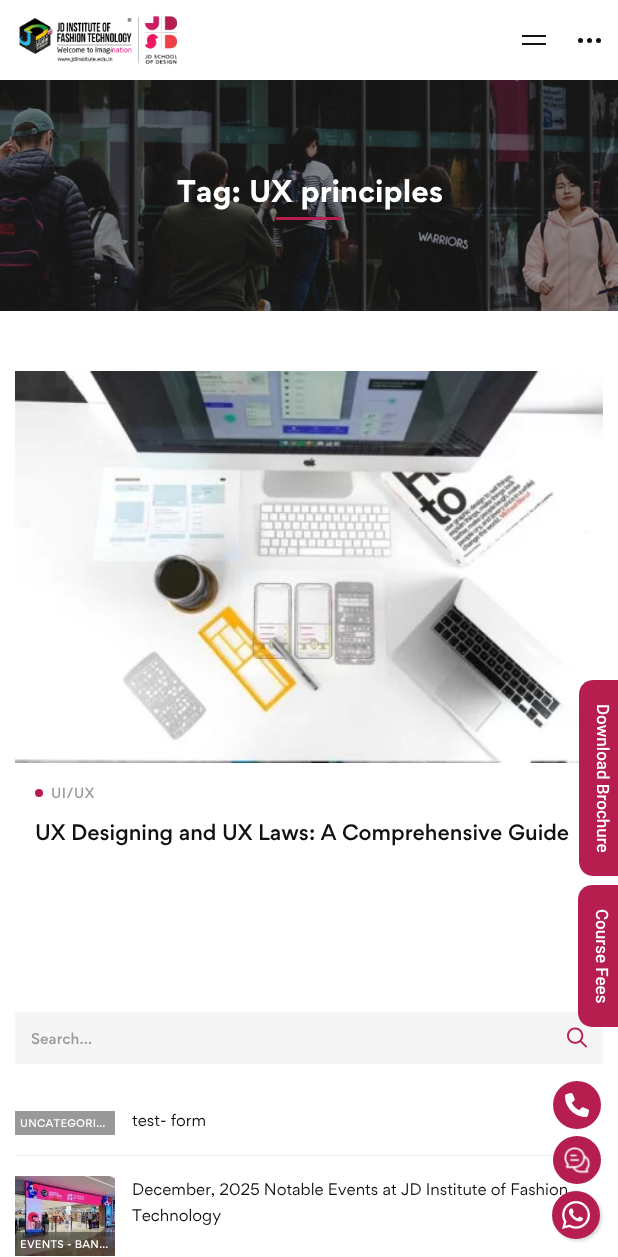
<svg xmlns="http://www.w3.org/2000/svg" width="618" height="1257">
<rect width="100%" height="100%" fill="#fff"/>
<image x="19" y="15" width="158" height="50" href="media/1.png"/>
<rect x="522" y="35" width="24" height="2" fill="#131313"/>
<rect x="522" y="43" width="24" height="2" fill="#131313"/>
<circle cx="580.5" cy="40.5" r="2.5" fill="#111"/>
<circle cx="589.5" cy="40.5" r="2.5" fill="#111"/>
<circle cx="598.5" cy="40.5" r="2.5" fill="#111"/>
<image x="0" y="80" width="618" height="231" href="media/2.png"/>
<text x="177" y="202" word-spacing="1" style="font-family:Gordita;font-size:28px;font-weight:bold;fill:#fff">Tag: UX principles</text>
<rect x="276" y="217" width="66" height="3" fill="#b51e4f"/>
<image x="15" y="371" width="588" height="392" href="media/3.png"/>
<circle cx="39" cy="793" r="4" fill="#b51e4f"/>
<text x="51" y="798" style="font-family:Gordita;font-size:13px;font-weight:500;letter-spacing:0.5px;fill:#9b9b9b">UI/UX</text>
<text x="35" y="840" word-spacing="0.25" style="font-family:Gordita;font-size:20px;font-weight:500;fill:#111">UX Designing and UX Laws: A Comprehensive Guide</text>
<rect x="15" y="1012" width="588" height="52" fill="#f5f5f5"/>
<text x="31" y="1044" style="font-family:Gordita;font-size:14px;font-weight:500;fill:#9b9b9b">Search…</text>
<image x="567" y="1027" width="20" height="21" href="media/4.png"/>
<rect x="15" y="1111" width="100" height="24" fill="#999"/>
<text x="20" y="1127" style="font-family:Gordita;font-size:10px;font-weight:500;letter-spacing:0.25px;fill:#fff">UNCATEGORI…</text>
<text x="132" y="1126" style="font-family:Gordita;font-size:15px;fill:#111">test- form</text>
<rect x="15" y="1155" width="588" height="1" fill="#eee"/>
<text x="132" y="1195" style="font-family:Gordita;font-size:15px;fill:#111">December, 2025 Notable Events at JD Institute of Fashion</text>
<text x="132" y="1221" style="font-family:Gordita;font-size:15px;fill:#111">Technology</text>
<image x="15" y="1176" width="100" height="80" href="media/5.png"/>
<rect x="15" y="1232" width="100" height="24" fill="#00000066"/>
<text x="20" y="1248" style="font-family:Gordita;font-size:10px;font-weight:500;letter-spacing:0.25px;fill:#fff">EVENTS - BAN…</text>
<path d="M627 680v196h-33c-9 0-15-6-15-15v-166c0-9 6-15 15-15z" fill="#b51e4f"/>
<text x="597" y="704" transform="rotate(90 597 704)" style="font-family:Roboto;font-size:17px;font-weight:500;fill:#fff">Download Brochure</text>
<path d="M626 885v142h-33c-9 0-15-6-15-15v-112c0-9 6-15 15-15z" fill="#b51e4f"/>
<text x="596" y="909" transform="rotate(90 596 909)" style="font-family:Roboto;font-size:17px;font-weight:500;fill:#fff">Course Fees</text>
<circle cx="577" cy="1105" r="24" fill="#b51e4f"/>
<image x="565" y="1093" width="24" height="24" href="media/6.png"/>
<circle cx="577" cy="1160" r="24" fill="#b51e4f"/>
<image x="564" y="1147" width="27" height="27" href="media/7.png"/>
<rect x="554" y="1193" width="48" height="48" rx="24" fill="#00000026" filter="blur(1.5px)"/>
<circle cx="576" cy="1215" r="24" fill="#b51e4f"/>
<image x="562" y="1201" width="28" height="28" href="media/8.png"/>
</svg>
